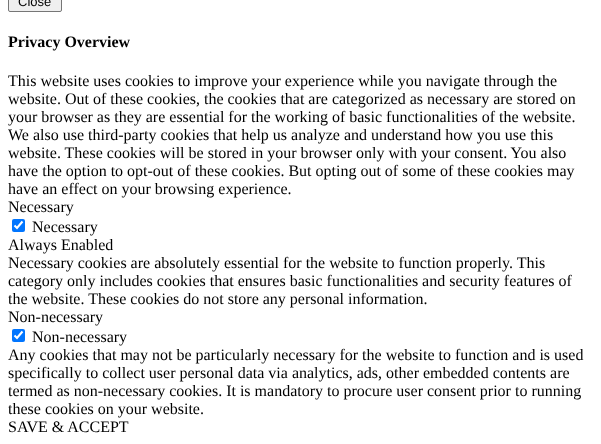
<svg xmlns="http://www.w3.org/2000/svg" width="601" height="444">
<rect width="100%" height="100%" fill="#fff"/>
<rect x="8.5" y="-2.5" width="53" height="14" rx="1.5" fill="#efefef" stroke="#767676"/>
<text x="18" y="6" style="font-family:Liberation Sans;font-size:13px;fill:#000">Close</text>
<text x="8" y="47" style="font-family:Liberation Serif;font-size:16px;font-weight:bold;fill:#000">Privacy Overview</text>
<text x="8" y="86" style="font-family:Liberation Serif;font-size:16px;fill:#000">This website uses cookies to improve your experience while you navigate through the</text>
<text x="8" y="104" style="font-family:Liberation Serif;font-size:16px;fill:#000">website. Out of these cookies, the cookies that are categorized as necessary are stored on</text>
<text x="8" y="122" style="font-family:Liberation Serif;font-size:16px;fill:#000">your browser as they are essential for the working of basic functionalities of the website.</text>
<text x="8" y="140" style="font-family:Liberation Serif;font-size:16px;fill:#000">We also use third-party cookies that help us analyze and understand how you use this</text>
<text x="8" y="158" style="font-family:Liberation Serif;font-size:16px;fill:#000">website. These cookies will be stored in your browser only with your consent. You also</text>
<text x="8" y="176" style="font-family:Liberation Serif;font-size:16px;fill:#000">have the option to opt-out of these cookies. But opting out of some of these cookies may</text>
<text x="8" y="194" style="font-family:Liberation Serif;font-size:16px;fill:#000">have an effect on your browsing experience.</text>
<text x="8" y="212" style="font-family:Liberation Serif;font-size:16px;fill:#000">Necessary</text>
<rect x="12" y="219" width="13" height="13" rx="2" fill="#0075ff"/>
<path d="M14.5 225.5l2.5 2.5l5.5-6.5" fill="none" stroke="#fff" stroke-width="2.1"/>
<text x="32" y="232" style="font-family:Liberation Serif;font-size:16px;fill:#000">Necessary</text>
<text x="8" y="250" style="font-family:Liberation Serif;font-size:16px;fill:#000">Always Enabled</text>
<text x="8" y="268" style="font-family:Liberation Serif;font-size:16px;fill:#000">Necessary cookies are absolutely essential for the website to function properly. This</text>
<text x="8" y="286" style="font-family:Liberation Serif;font-size:16px;fill:#000">category only includes cookies that ensures basic functionalities and security features of</text>
<text x="8" y="304" style="font-family:Liberation Serif;font-size:16px;fill:#000">the website. These cookies do not store any personal information.</text>
<text x="8" y="322" style="font-family:Liberation Serif;font-size:16px;fill:#000">Non-necessary</text>
<rect x="12" y="329" width="13" height="13" rx="2" fill="#0075ff"/>
<path d="M14.5 335.5l2.5 2.5l5.5-6.5" fill="none" stroke="#fff" stroke-width="2.1"/>
<text x="32" y="342" style="font-family:Liberation Serif;font-size:16px;fill:#000">Non-necessary</text>
<text x="8" y="360" style="font-family:Liberation Serif;font-size:16px;fill:#000">Any cookies that may not be particularly necessary for the website to function and is used</text>
<text x="8" y="378" style="font-family:Liberation Serif;font-size:16px;fill:#000">specifically to collect user personal data via analytics, ads, other embedded contents are</text>
<text x="8" y="396" style="font-family:Liberation Serif;font-size:16px;fill:#000">termed as non-necessary cookies. It is mandatory to procure user consent prior to running</text>
<text x="8" y="414" style="font-family:Liberation Serif;font-size:16px;fill:#000">these cookies on your website.</text>
<text x="8" y="432" style="font-family:Liberation Serif;font-size:16px;fill:#000">SAVE &amp; ACCEPT</text>
</svg>
